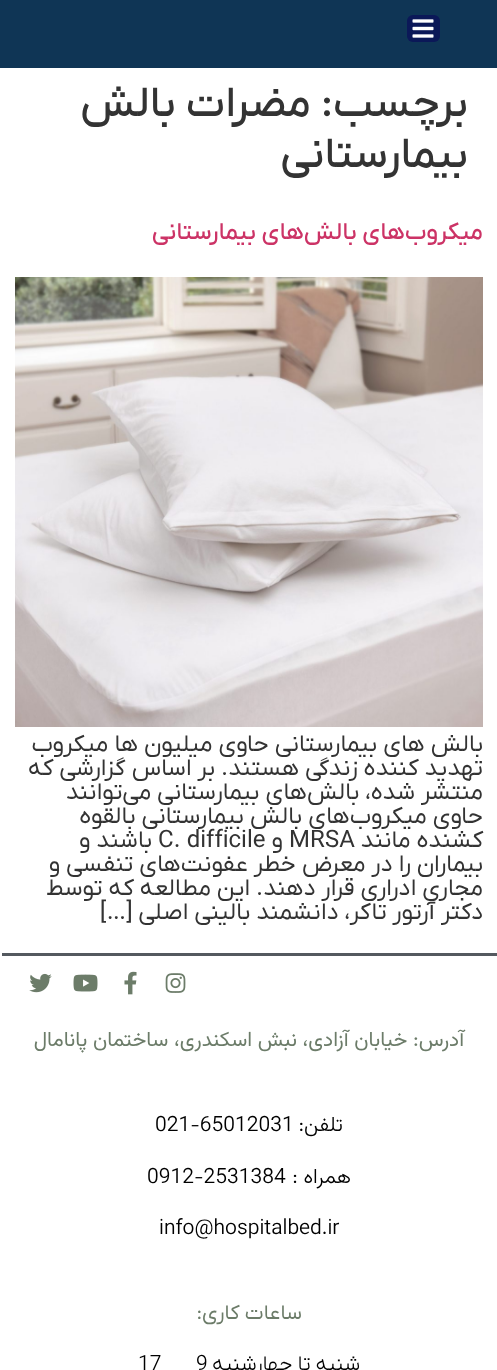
<svg xmlns="http://www.w3.org/2000/svg" width="497" height="1370">
<rect width="100%" height="100%" fill="#fff"/>
<rect width="497" height="68" fill="#0f3555"/>
<rect x="407" y="15" width="33" height="27" rx="6" fill="#0b1858"/>
<image x="412" y="19" width="22" height="19" href="media/1.png"/>
<text x="468" y="116" style="font-family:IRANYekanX;font-size:43.25px;font-weight:500;direction:rtl;fill:#333">برچسب:</text>
<text x="311" y="116" style="font-family:IRANYekanX;font-size:43.25px;font-weight:500;direction:rtl;fill:#333">مضرات بالش</text>
<text x="468" y="167" style="font-family:IRANYekanX;font-size:43.25px;font-weight:500;direction:rtl;fill:#333">بیمارستانی</text>
<text x="483" y="239" style="font-family:IRANYekanX;font-size:24px;font-weight:500;direction:rtl;fill:#c36">میکروب‌های بالش‌های بیمارستانی</text>
<image x="15" y="277" width="468" height="450" href="media/2.png"/>
<text x="483" y="751" style="font-family:IRANYekanX;font-size:24px;direction:rtl;fill:#333">بالش های بیمارستانی حاوی میلیون ها میکروب</text>
<text x="483" y="775" style="font-family:IRANYekanX;font-size:24px;direction:rtl;fill:#333">تهدید کننده زندگی هستند. بر اساس گزارشی که</text>
<text x="483" y="799" style="font-family:IRANYekanX;font-size:24px;direction:rtl;fill:#333">منتشر شده، بالش‌های بیمارستانی می‌توانند</text>
<text x="483" y="823" style="font-family:IRANYekanX;font-size:24px;direction:rtl;fill:#333">حاوی میکروب‌های بالش بیمارستانی بالقوه</text>
<text x="483" y="847" style="font-family:IRANYekanX;font-size:24px;direction:rtl;fill:#333">کشنده مانند</text>
<text x="289" y="847" style="font-family:IRANYekanX;font-size:24px;fill:#333">MRSA</text>
<text x="283" y="847" style="font-family:IRANYekanX;font-size:24px;direction:rtl;fill:#333">و</text>
<text x="158" y="847" style="font-family:IRANYekanX;font-size:24px;fill:#333">C. difficile</text>
<text x="152" y="847" style="font-family:IRANYekanX;font-size:24px;direction:rtl;fill:#333">باشند و</text>
<text x="483" y="871" style="font-family:IRANYekanX;font-size:24px;direction:rtl;fill:#333">بیماران را در معرض خطر عفونت‌های تنفسی و</text>
<text x="483" y="895" style="font-family:IRANYekanX;font-size:24px;direction:rtl;fill:#333">مجاری ادراری قرار دهند. این مطالعه که توسط</text>
<text x="483" y="919" style="font-family:IRANYekanX;font-size:24px;direction:rtl;fill:#333">دکتر آرتور تاکر، دانشمند بالینی اصلی […]</text>
<rect x="2" y="953" width="495" height="3" fill="#54595f"/>
<image x="165" y="973" width="21" height="20" href="media/3.png"/>
<image x="124" y="971" width="13" height="24" href="media/4.png"/>
<image x="73" y="974" width="25" height="18" href="media/5.png"/>
<image x="29" y="973" width="23" height="20" href="media/6.png"/>
<text x="464" y="1046" style="font-family:Vazirmatn;font-size:21px;direction:rtl;fill:#6c7c69">آدرس: خیابان آزادی، نبش اسکندری، ساختمان پانامال</text>
<text x="343" y="1131" style="font-family:Vazirmatn;font-size:21px;font-weight:300;direction:rtl;fill:#000">تلفن:</text>
<text x="155" y="1131" style="font-family:Vazirmatn;font-size:21px;font-weight:300;fill:#000">021-65012031</text>
<text x="351" y="1183" style="font-family:Vazirmatn;font-size:21px;font-weight:300;direction:rtl;fill:#000">همراه :</text>
<text x="147" y="1183" style="font-family:Vazirmatn;font-size:21px;font-weight:300;fill:#000">0912-2531384</text>
<text x="159" y="1234" style="font-family:Vazirmatn;font-size:21px;font-weight:300;fill:#000">info@hospitalbed.ir</text>
<text x="302" y="1319" style="font-family:IRANYekanX;font-size:21px;direction:rtl;fill:#6c7c69">ساعات کاری:</text>
<text x="360" y="1370" style="font-family:IRANYekanX;font-size:21px;font-weight:300;direction:rtl;fill:#000">شنبه تا چهارشنبه</text>
<text x="196" y="1370" style="font-family:IRANYekanX;font-size:21px;font-weight:300;fill:#000">9</text>
<text x="138" y="1370" style="font-family:IRANYekanX;font-size:21px;font-weight:300;fill:#000">17</text>
</svg>
